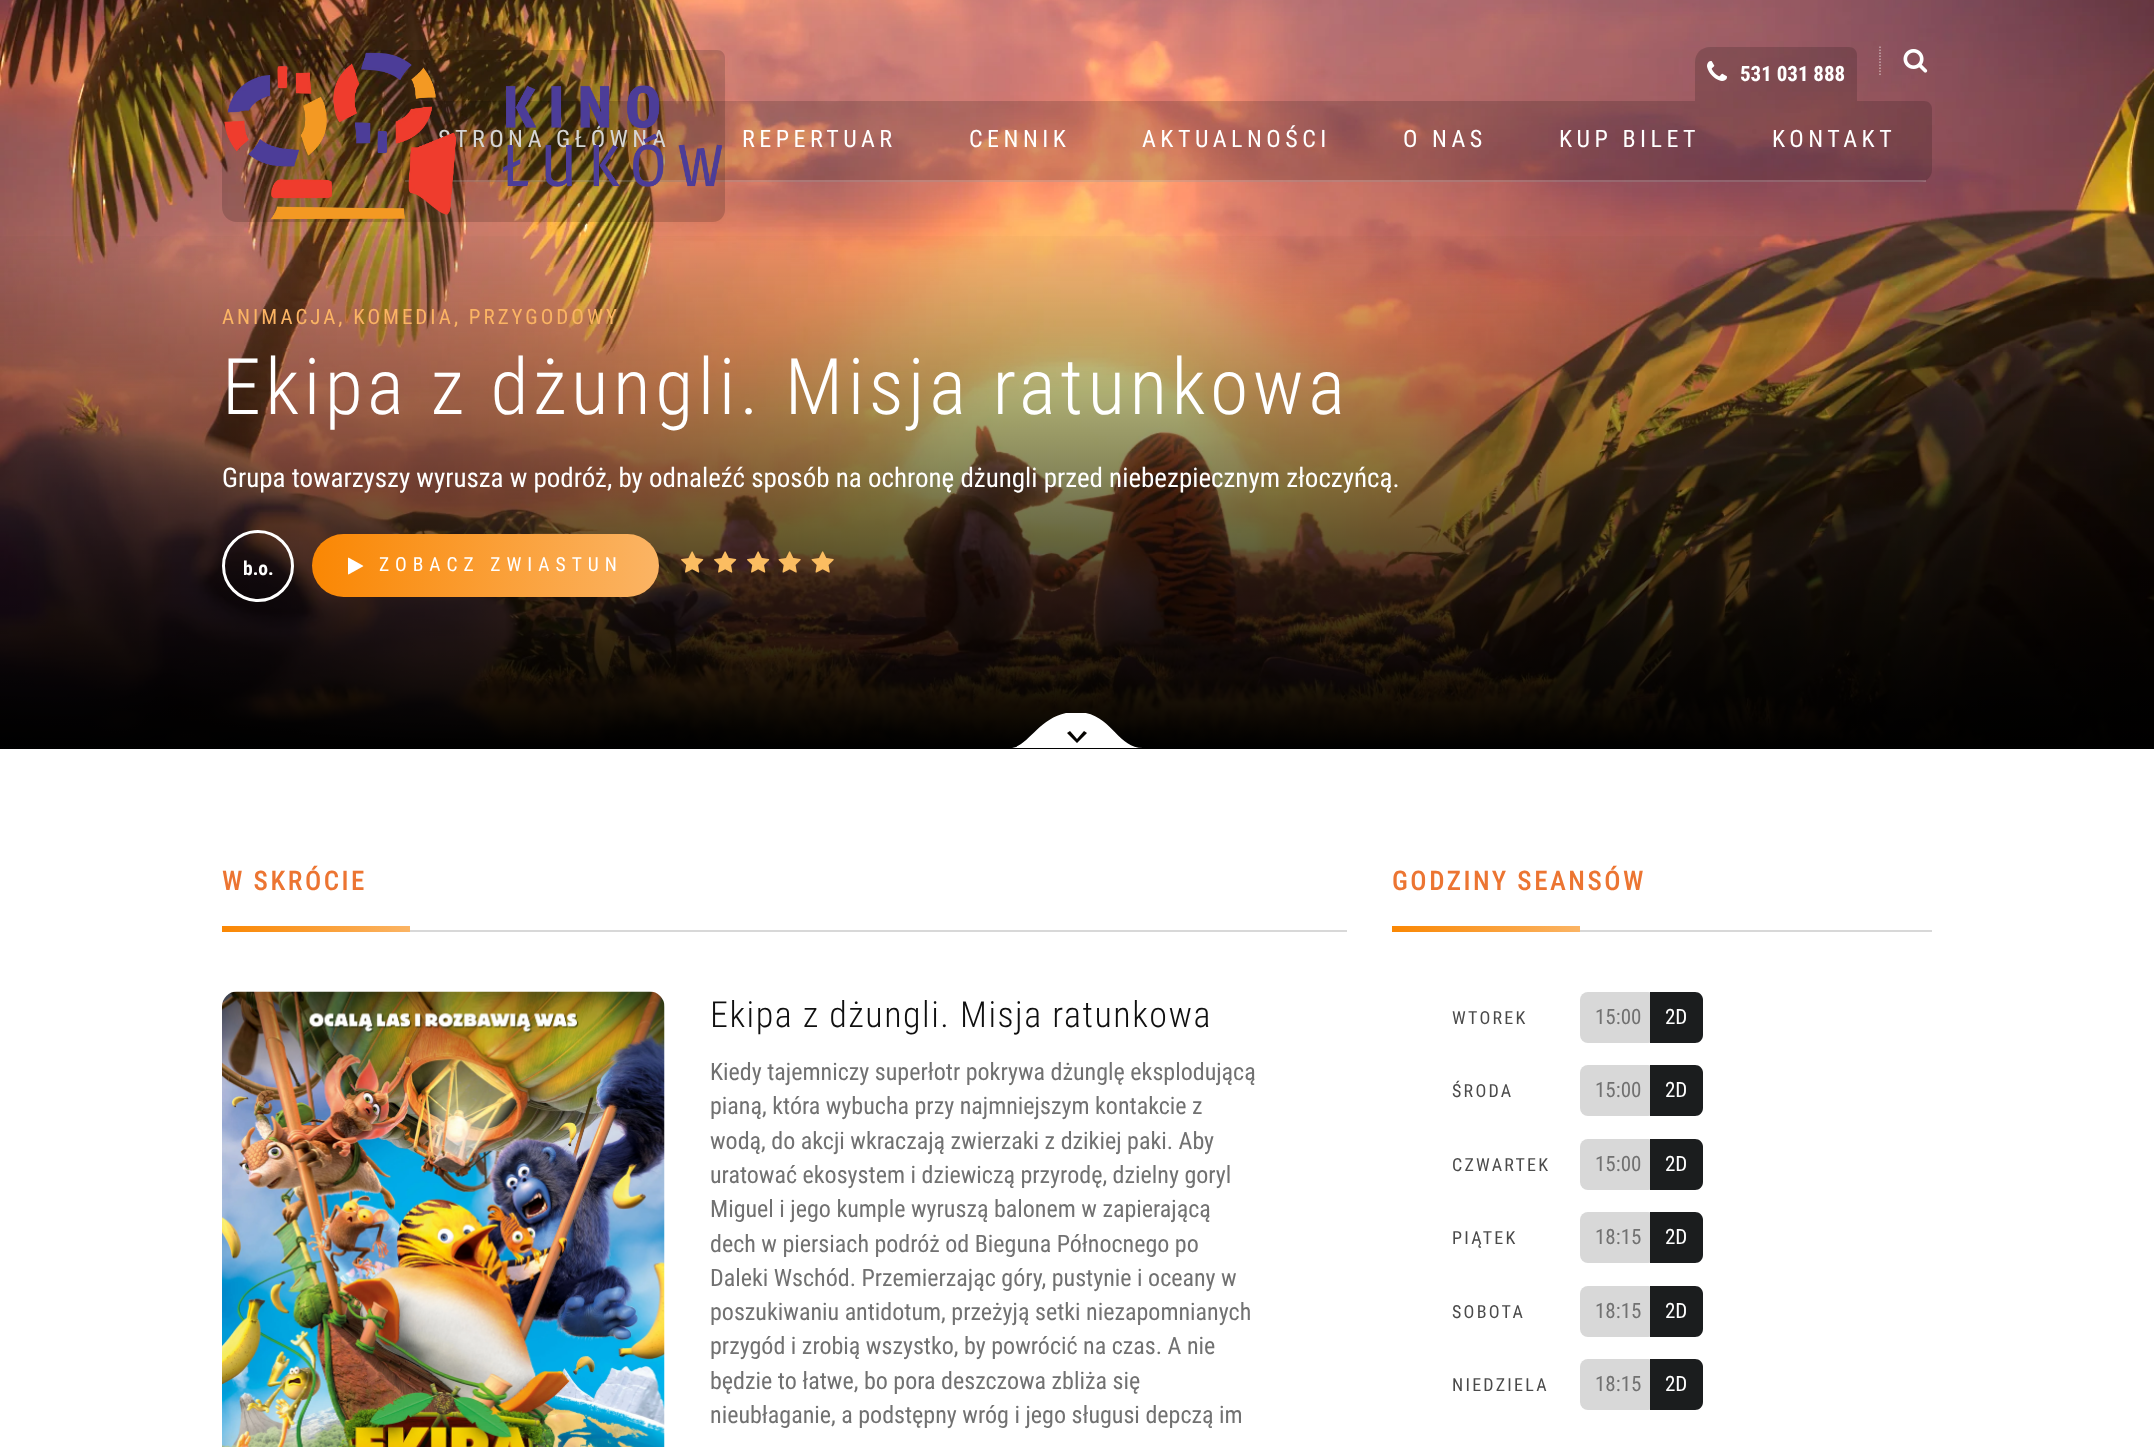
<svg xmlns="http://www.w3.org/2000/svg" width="2154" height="1447">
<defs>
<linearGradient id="g1" gradientUnits="userSpaceOnUse" x1="1077" y1="749" x2="1077" y2="225"><stop offset="0" stop-color="#000"/><stop offset="1" stop-color="#000" stop-opacity="0"/></linearGradient>
<linearGradient id="g2" gradientUnits="userSpaceOnUse" x1="312" y1="566" x2="659" y2="566"><stop offset="0" stop-color="#fa8703"/><stop offset="1" stop-color="#fbb464"/></linearGradient>
<clipPath id="clip1"><rect x="1010" y="713" width="133" height="36"/></clipPath>
<linearGradient id="g3" gradientUnits="userSpaceOnUse" x1="222" y1="929" x2="410" y2="929"><stop offset="0" stop-color="#fa8703"/><stop offset="1" stop-color="#fbb464"/></linearGradient>
<linearGradient id="g4" gradientUnits="userSpaceOnUse" x1="1392" y1="929" x2="1580" y2="929"><stop offset="0" stop-color="#fa8703"/><stop offset="1" stop-color="#fbb464"/></linearGradient>
</defs>
<rect width="100%" height="100%" fill="#fff"/>
<image x="0" y="0" width="2154" height="746" href="media/4.png"/>
<path d="M1710 47h139c4.5 0 8 3.5 8 8v46h-162v-39c0-8.5 6.5-15 15-15z" fill="#00000029"/>
<image x="1707" y="61" width="20" height="20" href="media/1.png"/>
<text x="1740" y="81" style="font-family:Roboto Condensed;font-size:21px;font-weight:bold;fill:#fff">531 031 888</text>
<path d="M1880 46.5v30" fill="none" stroke="#ffffff80" stroke-width="1.5" stroke-dasharray="1.5 1.5"/>
<image x="1903" y="49" width="25" height="24" href="media/2.png"/>
<path d="M417 101h1507c4.5 0 8 3.5 8 8v61c0 6.5-5.5 12-12 12h-1512c-3.5 0-6-2.5-6-6v-60c0-8.5 6.5-15 15-15z" fill="#00000029"/>
<rect x="405" y="180" width="1521" height="2" fill="#ffffff33"/>
<text x="438" y="147" style="font-family:Roboto Condensed;font-size:24px;letter-spacing:4.5px;fill:#fff">STRONA GŁÓWNA</text>
<path d="M237 50h480c4.5 0 8 3.5 8 8v152c0 6.5-5.5 12-12 12h-476c-8.5 0-15-6.5-15-15v-142c0-8.5 6.5-15 15-15z" fill="#00000029"/>
<image x="224" y="52" width="498" height="168" href="media/3.png"/>
<text x="742" y="147" style="font-family:Roboto Condensed;font-size:24px;letter-spacing:4.5px;fill:#fff">REPERTUAR</text>
<text x="969" y="147" style="font-family:Roboto Condensed;font-size:24px;letter-spacing:4.5px;fill:#fff">CENNIK</text>
<text x="1142" y="147" style="font-family:Roboto Condensed;font-size:24px;letter-spacing:4.5px;fill:#fff">AKTUALNOŚCI</text>
<text x="1403" y="147" style="font-family:Roboto Condensed;font-size:24px;letter-spacing:4.5px;fill:#fff">O NAS</text>
<text x="1559" y="147" style="font-family:Roboto Condensed;font-size:24px;letter-spacing:4.5px;fill:#fff">KUP BILET</text>
<text x="1772" y="147" style="font-family:Roboto Condensed;font-size:24px;letter-spacing:4.5px;fill:#fff">KONTAKT</text>
<rect y="236" width="2154" height="513" fill="url(#g1)"/>
<text x="222" y="324" style="font-family:Roboto Condensed;font-size:21px;letter-spacing:3px;fill:#fbb464">ANIMACJA, KOMEDIA, PRZYGODOWY</text>
<text x="222" y="414" style="font-family:Roboto Condensed;font-size:78px;font-weight:300;letter-spacing:4.5px;fill:#fff">Ekipa z dżungli. Misja ratunkowa</text>
<text x="222" y="487" style="font-family:Roboto Condensed;font-size:27px;fill:#fff">Grupa towarzyszy wyrusza w podróż, by odnaleźć sposób na ochronę dżungli przed niebezpiecznym złoczyńcą.</text>
<circle cx="258" cy="566" r="34.5" fill="none" stroke="#fff" stroke-width="3"/>
<text x="243" y="575" style="font-family:Roboto Condensed;font-size:19.5px;font-weight:bold;fill:#fff">b.o.</text>
<rect x="312" y="534" width="347" height="63" rx="31.5" fill="url(#g2)"/>
<image x="348" y="557" width="16" height="18" href="media/5.png"/>
<text x="379" y="571" style="font-family:Roboto Condensed;font-size:19.5px;letter-spacing:6px;fill:#fff">ZOBACZ ZWIASTUN</text>
<image x="681" y="551" width="23" height="22" href="media/6.png"/>
<image x="714" y="551" width="23" height="22" href="media/7.png"/>
<image x="747" y="551" width="23" height="22" href="media/8.png"/>
<image x="778" y="551" width="23" height="22" href="media/9.png"/>
<image x="811" y="551" width="23" height="22" href="media/10.png"/>
<g clip-path="url(#clip1)">
<path d="M1010 748c19 0 30-36 66-36c36 0 40 36 67 36zm60-17l-3 2l10 10l10-10l-3-2l-7 8z" fill="#fff" fill-rule="evenodd"/>
</g>
<rect x="410" y="930" width="937" height="2" fill="#d8d8d8"/>
<text x="222" y="890" style="font-family:Roboto Condensed;font-size:27px;font-weight:500;letter-spacing:2.5px;fill:#ec7532">W SKRÓCIE</text>
<rect x="222" y="926" width="188" height="6" fill="url(#g3)"/>
<image x="222" y="991" width="443" height="456" href="media/11.png"/>
<text x="710" y="1027" style="font-family:Roboto Condensed;font-size:36px;font-weight:300;letter-spacing:1.5px;fill:#101010">Ekipa z dżungli. Misja ratunkowa</text>
<text x="710" y="1080" style="font-family:Roboto Condensed;font-size:24px;fill:#717171">Kiedy tajemniczy superłotr pokrywa dżunglę eksplodującą</text>
<text x="710" y="1114" style="font-family:Roboto Condensed;font-size:24px;fill:#717171">pianą, która wybucha przy najmniejszym kontakcie z</text>
<text x="710" y="1149" style="font-family:Roboto Condensed;font-size:24px;fill:#717171">wodą, do akcji wkraczają zwierzaki z dzikiej paki. Aby</text>
<text x="710" y="1183" style="font-family:Roboto Condensed;font-size:24px;fill:#717171">uratować ekosystem i dziewiczą przyrodę, dzielny goryl</text>
<text x="710" y="1217" style="font-family:Roboto Condensed;font-size:24px;fill:#717171">Miguel i jego kumple wyruszą balonem w zapierającą</text>
<text x="710" y="1252" style="font-family:Roboto Condensed;font-size:24px;fill:#717171">dech w piersiach podróż od Bieguna Północnego po</text>
<text x="710" y="1286" style="font-family:Roboto Condensed;font-size:24px;fill:#717171">Daleki Wschód. Przemierzając góry, pustynie i oceany w</text>
<text x="710" y="1320" style="font-family:Roboto Condensed;font-size:24px;fill:#717171">poszukiwaniu antidotum, przeżyją setki niezapomnianych</text>
<text x="710" y="1354" style="font-family:Roboto Condensed;font-size:24px;fill:#717171">przygód i zrobią wszystko, by powrócić na czas. A nie</text>
<text x="710" y="1389" style="font-family:Roboto Condensed;font-size:24px;fill:#717171">będzie to łatwe, bo pora deszczowa zbliża się</text>
<text x="710" y="1423" style="font-family:Roboto Condensed;font-size:24px;fill:#717171">nieubłaganie, a podstępny wróg i jego sługusi depczą im</text>
<rect x="1580" y="930" width="352" height="2" fill="#d8d8d8"/>
<text x="1392" y="890" style="font-family:Roboto Condensed;font-size:27px;font-weight:500;letter-spacing:2.5px;fill:#ec7532">GODZINY SEANSÓW</text>
<rect x="1392" y="926" width="188" height="6" fill="url(#g4)"/>
<text x="1452" y="1024" style="font-family:Roboto Condensed;font-size:18px;letter-spacing:2.25px;fill:#4a4a4a">WTOREK</text>
<rect x="1580" y="992" width="76" height="51" rx="8" fill="#d8d8d8"/>
<text x="1595" y="1024" style="font-family:Roboto Condensed;font-size:21px;fill:#717171">15:00</text>
<path d="M1650 992h45c4.5 0 8 3.5 8 8v35c0 4.5-3.5 8-8 8h-45z" fill="#1b1d1e"/>
<text x="1665" y="1024" style="font-family:Roboto Condensed;font-size:21px;fill:#fff">2D</text>
<text x="1452" y="1097" style="font-family:Roboto Condensed;font-size:18px;letter-spacing:2.25px;fill:#4a4a4a">ŚRODA</text>
<rect x="1580" y="1065" width="76" height="51" rx="8" fill="#d8d8d8"/>
<text x="1595" y="1097" style="font-family:Roboto Condensed;font-size:21px;fill:#717171">15:00</text>
<path d="M1650 1065h45c4.5 0 8 3.5 8 8v35c0 4.5-3.5 8-8 8h-45z" fill="#1b1d1e"/>
<text x="1665" y="1097" style="font-family:Roboto Condensed;font-size:21px;fill:#fff">2D</text>
<text x="1452" y="1171" style="font-family:Roboto Condensed;font-size:18px;letter-spacing:2.25px;fill:#4a4a4a">CZWARTEK</text>
<rect x="1580" y="1139" width="76" height="51" rx="8" fill="#d8d8d8"/>
<text x="1595" y="1171" style="font-family:Roboto Condensed;font-size:21px;fill:#717171">15:00</text>
<path d="M1650 1139h45c4.5 0 8 3.5 8 8v35c0 4.5-3.5 8-8 8h-45z" fill="#1b1d1e"/>
<text x="1665" y="1171" style="font-family:Roboto Condensed;font-size:21px;fill:#fff">2D</text>
<text x="1452" y="1244" style="font-family:Roboto Condensed;font-size:18px;letter-spacing:2.25px;fill:#4a4a4a">PIĄTEK</text>
<rect x="1580" y="1212" width="76" height="51" rx="8" fill="#d8d8d8"/>
<text x="1595" y="1244" style="font-family:Roboto Condensed;font-size:21px;fill:#717171">18:15</text>
<path d="M1650 1212h45c4.5 0 8 3.5 8 8v35c0 4.5-3.5 8-8 8h-45z" fill="#1b1d1e"/>
<text x="1665" y="1244" style="font-family:Roboto Condensed;font-size:21px;fill:#fff">2D</text>
<text x="1452" y="1318" style="font-family:Roboto Condensed;font-size:18px;letter-spacing:2.25px;fill:#4a4a4a">SOBOTA</text>
<rect x="1580" y="1286" width="76" height="51" rx="8" fill="#d8d8d8"/>
<text x="1595" y="1318" style="font-family:Roboto Condensed;font-size:21px;fill:#717171">18:15</text>
<path d="M1650 1286h45c4.5 0 8 3.5 8 8v35c0 4.5-3.5 8-8 8h-45z" fill="#1b1d1e"/>
<text x="1665" y="1318" style="font-family:Roboto Condensed;font-size:21px;fill:#fff">2D</text>
<text x="1452" y="1391" style="font-family:Roboto Condensed;font-size:18px;letter-spacing:2.25px;fill:#4a4a4a">NIEDZIELA</text>
<rect x="1580" y="1359" width="76" height="51" rx="8" fill="#d8d8d8"/>
<text x="1595" y="1391" style="font-family:Roboto Condensed;font-size:21px;fill:#717171">18:15</text>
<path d="M1650 1359h45c4.5 0 8 3.5 8 8v35c0 4.5-3.5 8-8 8h-45z" fill="#1b1d1e"/>
<text x="1665" y="1391" style="font-family:Roboto Condensed;font-size:21px;fill:#fff">2D</text>
</svg>
